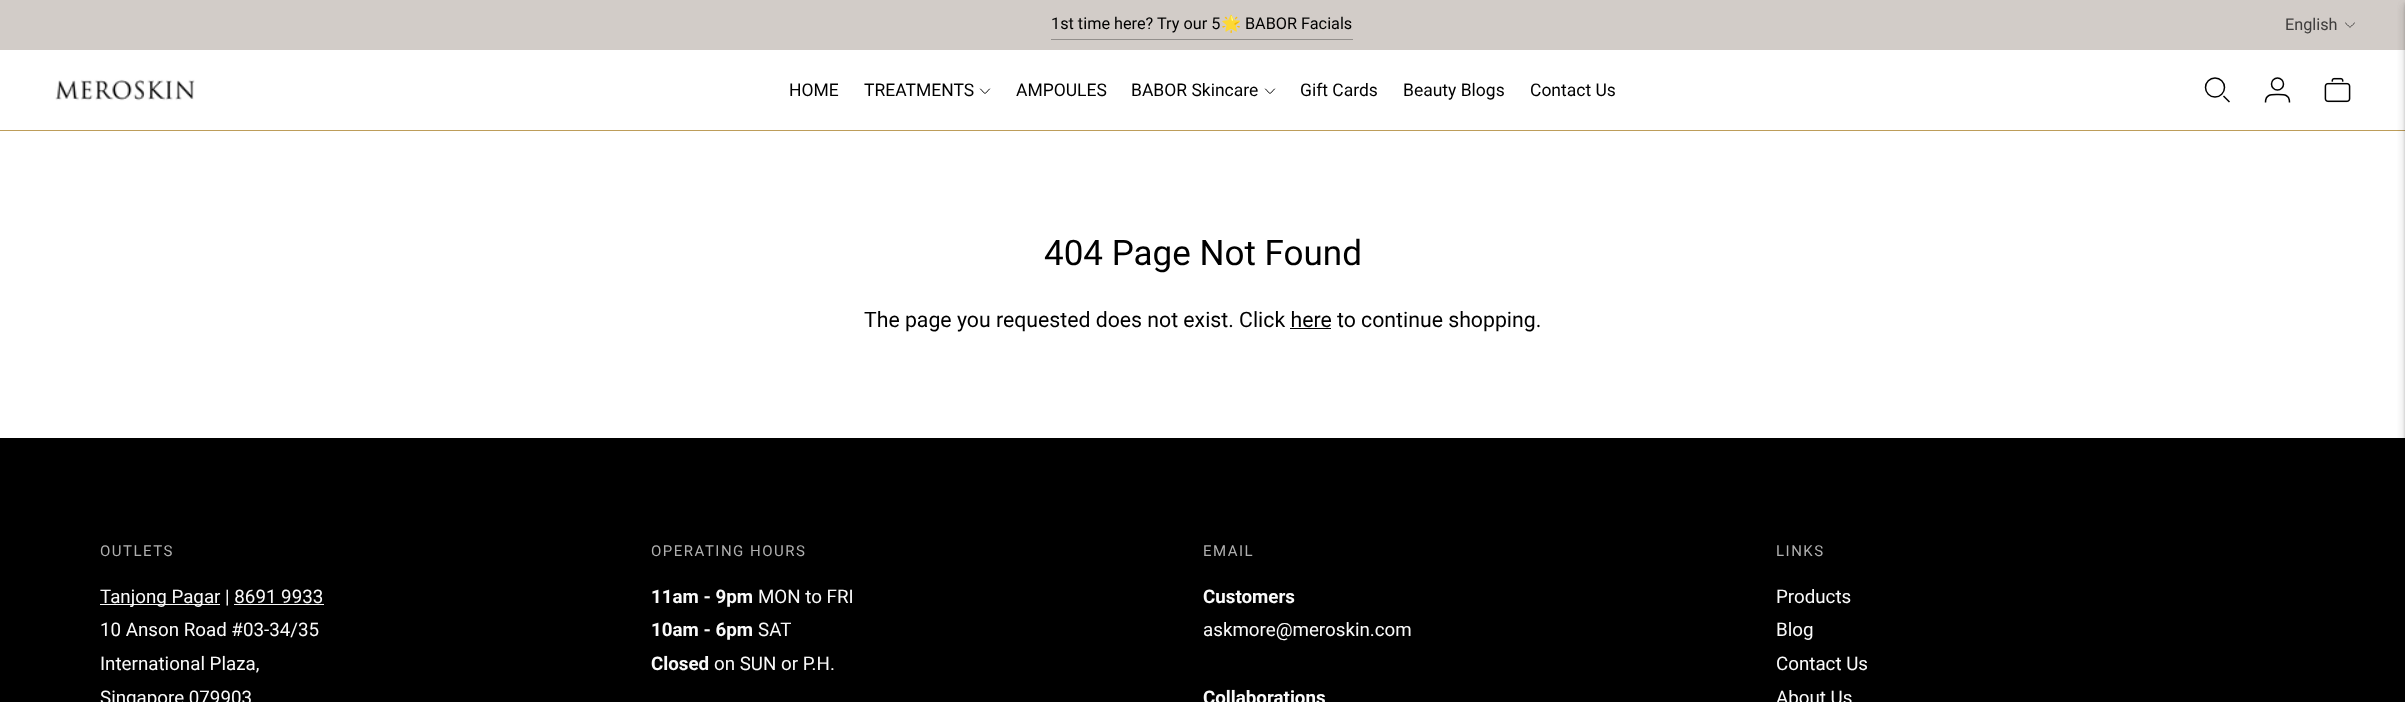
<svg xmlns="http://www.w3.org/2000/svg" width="2405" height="702">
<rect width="100%" height="100%" fill="#fff"/>
<rect width="2405" height="50" fill="#d2ccc8"/>
<rect y="130" width="2405" height="1" fill="#bd9d5a"/>
<rect y="438" width="2405" height="264" fill="#000"/>
<rect x="2405" y="5" width="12" height="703" fill="#0000001a" filter="blur(4px)"/>
<rect x="2405" y="3" width="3" height="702" fill="#00000026" filter="blur(1px)"/>
<text x="1051" y="29" style="font-family:Roboto;font-size:16.25px;fill:#000">1st time here?</text>
<text x="1157" y="29" style="font-family:Roboto;font-size:16.25px;fill:#000">Try our 5</text>
<text x="1221" y="29" style="font-family:Noto Color Emoji;font-size:16.25px;fill:#000">🌟</text>
<text x="1245" y="29" style="font-family:Roboto;font-size:16.25px;fill:#000">BABOR Facials</text>
<rect x="1051" y="39" width="302" height="1" fill="#938f8c"/>
<text x="2285" y="30" style="font-family:Roboto;font-size:16.25px;fill:#3f3d3c">English</text>
<path d="M2345.5 23c6 5.5 3 5.5 9 0" fill="none" stroke="#3f3d3c" stroke-linecap="round" stroke-linejoin="round"/>
<image x="55" y="79" width="140" height="22" href="media/1.png"/>
<text x="789" y="96" style="font-family:Roboto;font-size:17.5px;fill:#000">HOME</text>
<text x="864" y="96" style="font-family:Roboto;font-size:17.5px;fill:#000">TREATMENTS</text>
<path d="M980.5 89c6 6 3 6 9 0" fill="none" stroke="#000" stroke-linecap="round" stroke-linejoin="round"/>
<text x="1016" y="96" style="font-family:Roboto;font-size:17.5px;fill:#000">AMPOULES</text>
<text x="1131" y="96" style="font-family:Roboto;font-size:17.5px;fill:#000">BABOR Skincare</text>
<path d="M1265.5 89c6 6 3 6 9 0" fill="none" stroke="#000" stroke-linecap="round" stroke-linejoin="round"/>
<text x="1300" y="96" style="font-family:Roboto;font-size:17.5px;fill:#000">Gift Cards</text>
<text x="1403" y="96" style="font-family:Roboto;font-size:17.5px;fill:#000">Beauty Blogs</text>
<text x="1530" y="96" style="font-family:Roboto;font-size:17.5px;fill:#000">Contact Us</text>
<circle cx="2215" cy="87.5" r="9.5" fill="none" stroke="#000" stroke-width="1.5"/>
<path d="M2223.5 96l6 6" fill="none" stroke="#000" stroke-width="1.5"/>
<circle cx="2277.5" cy="84" r="6" fill="none" stroke="#000" stroke-width="1.5"/>
<path d="M2265.5 102.5c0-8.5 6-8 12-8c6 0 12-.5 12 8" fill="none" stroke="#000" stroke-width="1.5"/>
<image x="2324" y="77" width="27" height="26" href="media/2.png"/>
<rect x="2405" y="5" width="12" height="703" fill="#0000001a" filter="blur(4px)"/>
<text x="1044" y="265" style="font-family:Roboto;font-size:35px;fill:#000">404 Page Not Found</text>
<text x="864" y="327" style="font-family:Roboto;font-size:21.25px;fill:#000">The page you requested does not exist. Click here to continue shopping.</text>
<rect x="1290" y="328" width="41" height="1" fill="#000"/>
<text x="100" y="556" style="font-family:Roboto;font-size:15px;letter-spacing:1.5px;fill:#afafaf">OUTLETS</text>
<rect x="100" y="604" width="120" height="1" fill="#fafafa"/>
<text x="100" y="603" style="font-family:Roboto;font-size:18.75px;fill:#fafafa">Tanjong Pagar | 8691 9933</text>
<rect x="234" y="604" width="90" height="1" fill="#fafafa"/>
<text x="100" y="636" style="font-family:Roboto;font-size:18.75px;fill:#fafafa">10 Anson Road #03-34/35</text>
<text x="100" y="670" style="font-family:Roboto;font-size:18.75px;fill:#fafafa">International Plaza,</text>
<text x="100" y="704" style="font-family:Roboto;font-size:18.75px;fill:#fafafa">Singapore 079903</text>
<text x="651" y="556" style="font-family:Roboto;font-size:15px;letter-spacing:1.5px;fill:#afafaf">OPERATING HOURS</text>
<text x="651" y="603" style="font-family:Roboto;font-size:18.75px;font-weight:bold;fill:#fafafa">11am - 9pm</text>
<text x="758" y="603" style="font-family:Roboto;font-size:18.75px;fill:#fafafa">MON to FRI</text>
<text x="651" y="636" style="font-family:Roboto;font-size:18.75px;font-weight:bold;fill:#fafafa">10am - 6pm</text>
<text x="758" y="636" style="font-family:Roboto;font-size:18.75px;fill:#fafafa">SAT</text>
<text x="651" y="670" style="font-family:Roboto;font-size:18.75px;font-weight:bold;fill:#fafafa">Closed</text>
<text x="714" y="670" style="font-family:Roboto;font-size:18.75px;fill:#fafafa">on SUN or P.H.</text>
<text x="1203" y="556" style="font-family:Roboto;font-size:15px;letter-spacing:1.5px;fill:#afafaf">EMAIL</text>
<text x="1203" y="603" style="font-family:Roboto;font-size:18.75px;font-weight:bold;fill:#fafafa">Customers</text>
<text x="1203" y="636" style="font-family:Roboto;font-size:18.75px;fill:#fafafa">askmore@meroskin.com</text>
<text x="1203" y="704" style="font-family:Roboto;font-size:18.75px;font-weight:bold;fill:#fafafa">Collaborations</text>
<text x="1776" y="556" style="font-family:Roboto;font-size:15px;letter-spacing:1.5px;fill:#afafaf">LINKS</text>
<text x="1776" y="603" style="font-family:Roboto;font-size:18.75px;fill:#fafafa">Products</text>
<text x="1776" y="636" style="font-family:Roboto;font-size:18.75px;fill:#fafafa">Blog</text>
<text x="1776" y="670" style="font-family:Roboto;font-size:18.75px;fill:#fafafa">Contact Us</text>
<text x="1776" y="704" style="font-family:Roboto;font-size:18.75px;fill:#fafafa">About Us</text>
</svg>
